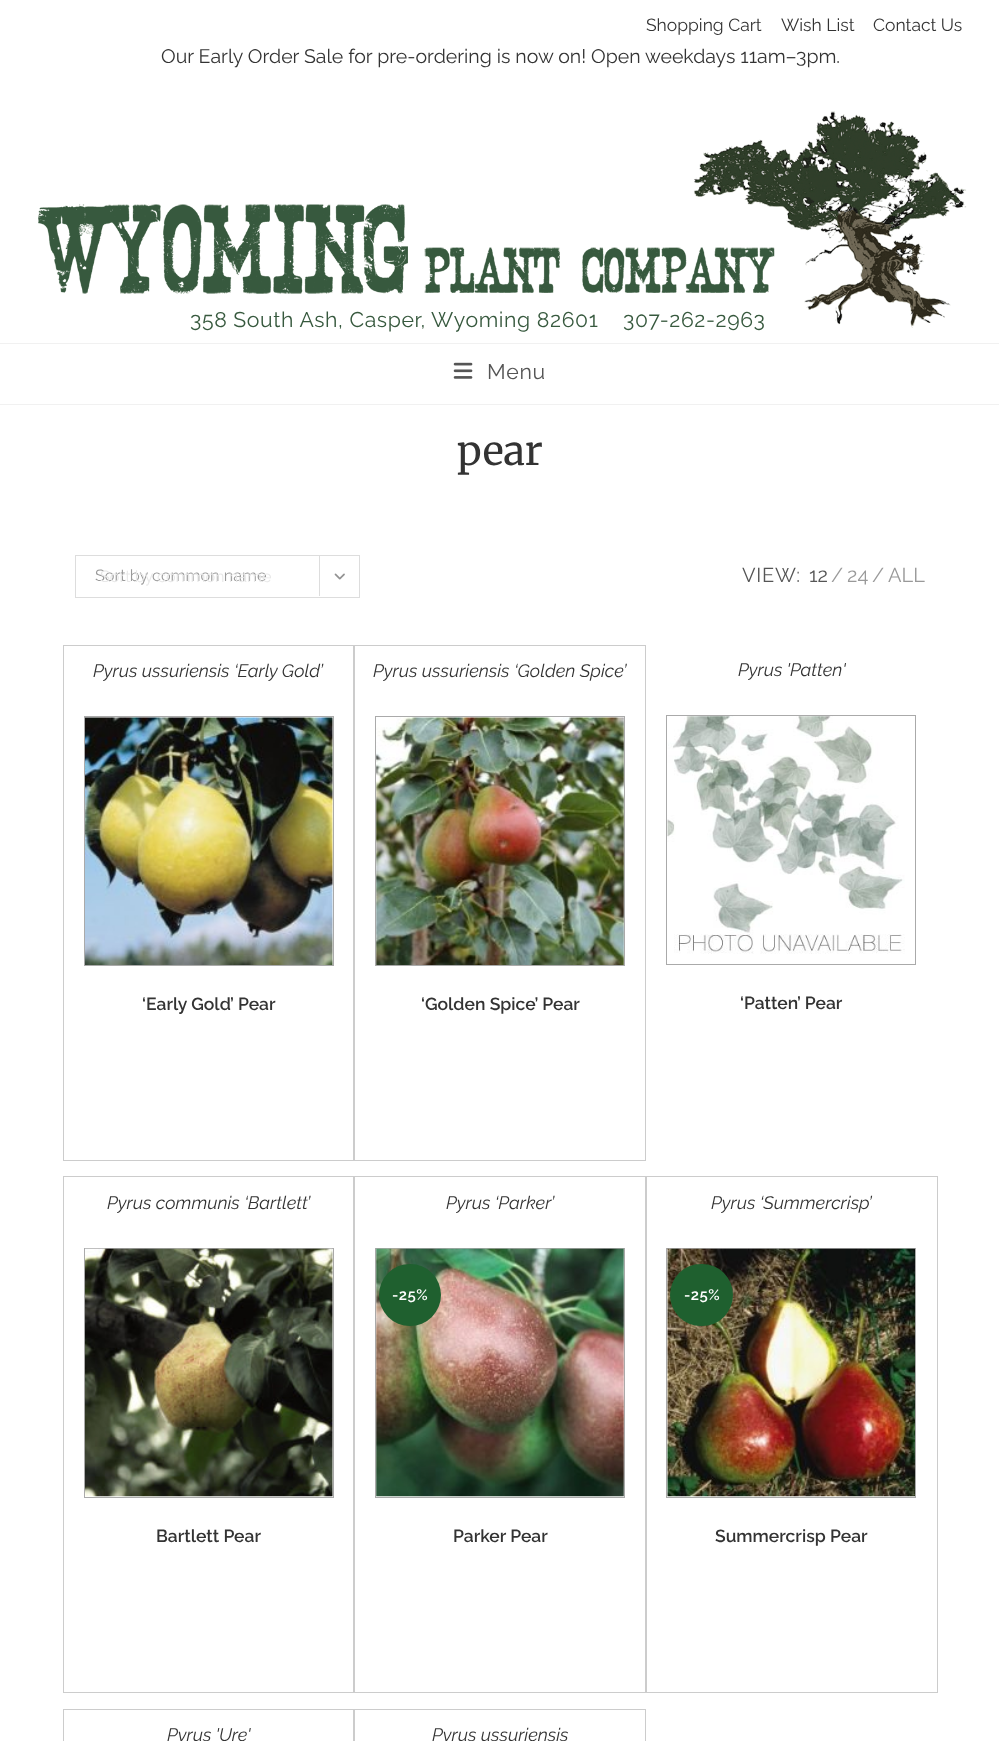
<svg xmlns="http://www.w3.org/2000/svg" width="999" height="1741">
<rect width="100%" height="100%" fill="#fff"/>
<text x="646" y="31" style="font-family:Raleway;font-size:17.5px;fill:#333">Shopping Cart</text>
<text x="781" y="31" style="font-family:Raleway;font-size:17.5px;fill:#333">Wish List</text>
<text x="873" y="31" style="font-family:Raleway;font-size:17.5px;fill:#333">Contact Us</text>
<text x="161" y="63" style="font-family:Raleway;font-size:19.5px;fill:#333">Our Early Order Sale for pre-ordering is now on! Open weekdays 11am–3pm.</text>
<image x="38" y="111" width="929" height="217" href="media/1.png"/>
<rect y="343" width="999" height="1" fill="#f1f1f1"/>
<rect y="404" width="999" height="1" fill="#f1f1f1"/>
<text x="190" y="327" style="font-family:Raleway;font-size:21.25px;letter-spacing:0.6px;fill:#37593e">358 South Ash, Casper, Wyoming 82601</text>
<text x="623" y="327" style="font-family:Raleway;font-size:21.25px;letter-spacing:0.6px;fill:#37593e">307-262-2963</text>
<image x="453" y="362" width="20" height="17" href="media/2.png"/>
<text x="487" y="379" style="font-family:Raleway;font-size:21.25px;letter-spacing:0.75px;fill:#555">Menu</text>
<text x="457" y="465" style="font-family:Merriweather;font-size:40px;fill:#333">pear</text>
<rect x="75.5" y="555.5" width="284" height="42" fill="none" stroke="#ddd"/>
<text x="95" y="581" style="font-family:Raleway;font-size:16.25px;fill:#999">Sort by common name</text>
<rect x="319" y="556" width="1" height="40" fill="#ddd"/>
<image x="334" y="573" width="11" height="7" href="media/3.png"/>
<text x="100" y="582" style="font-family:Raleway;font-size:16.25px;fill:#e8e8e8">Sort by common name</text>
<text x="742" y="582" style="font-family:Raleway;font-size:20px;letter-spacing:0.75px;fill:#555">VIEW:</text>
<text x="809" y="582" style="font-family:Raleway;font-size:20px;fill:#555">12</text>
<text x="831" y="582" style="font-family:Raleway;font-size:20px;fill:#999">/</text>
<text x="847" y="582" style="font-family:Raleway;font-size:20px;fill:#999">24</text>
<text x="872" y="582" style="font-family:Raleway;font-size:20px;fill:#999">/</text>
<text x="888" y="582" style="font-family:Raleway;font-size:20px;fill:#999">ALL</text>
<rect x="63.5" y="645.5" width="290" height="515" fill="none" stroke="#ccc"/>
<text x="93" y="677" style="font-family:Raleway;font-size:18px;font-style:italic;fill:#333">Pyrus ussuriensis ‘Early Gold’</text>
<rect x="84.5" y="716.5" width="249" height="249" fill="none" stroke="#aaa"/>
<image x="85" y="717" width="248" height="248" href="media/4.png"/>
<text x="142" y="1010" style="font-family:Raleway;font-size:17.5px;font-weight:600;fill:#333">‘Early Gold’ Pear</text>
<rect x="354.5" y="645.5" width="291" height="515" fill="none" stroke="#ccc"/>
<text x="373" y="677" style="font-family:Raleway;font-size:18px;font-style:italic;fill:#333">Pyrus ussuriensis ‘Golden Spice’</text>
<rect x="375.5" y="716.5" width="249" height="249" fill="none" stroke="#aaa"/>
<image x="376" y="717" width="248" height="248" href="media/5.png"/>
<text x="421" y="1010" style="font-family:Raleway;font-size:17.5px;font-weight:600;fill:#333">‘Golden Spice’ Pear</text>
<text x="738" y="676" style="font-family:Raleway;font-size:18px;font-style:italic;fill:#333">Pyrus 'Patten'</text>
<rect x="666.5" y="715.5" width="249" height="249" fill="none" stroke="#aaa"/>
<image x="667" y="716" width="238" height="238" href="media/6.png"/>
<text x="740" y="1009" style="font-family:Raleway;font-size:17.5px;font-weight:600;fill:#333">‘Patten’ Pear</text>
<rect x="63.5" y="1176.5" width="290" height="516" fill="none" stroke="#ccc"/>
<text x="107" y="1209" style="font-family:Raleway;font-size:18px;font-style:italic;fill:#333">Pyrus communis ‘Bartlett’</text>
<rect x="84.5" y="1248.5" width="249" height="249" fill="none" stroke="#aaa"/>
<image x="85" y="1248" width="248" height="249" href="media/7.png"/>
<text x="156" y="1542" style="font-family:Raleway;font-size:17.5px;font-weight:600;fill:#333">Bartlett Pear</text>
<rect x="354.5" y="1176.5" width="291" height="516" fill="none" stroke="#ccc"/>
<text x="446" y="1209" style="font-family:Raleway;font-size:18px;font-style:italic;fill:#333">Pyrus ‘Parker’</text>
<rect x="375.5" y="1248.5" width="249" height="249" fill="none" stroke="#aaa"/>
<image x="376" y="1248" width="248" height="249" href="media/8.png"/>
<circle cx="410" cy="1295" r="31" fill="#1f602f"/>
<text x="392" y="1300" style="font-family:Raleway;font-size:15px;font-weight:600;letter-spacing:0.5px;fill:#fff">-25%</text>
<text x="453" y="1542" style="font-family:Raleway;font-size:17.5px;font-weight:600;fill:#333">Parker Pear</text>
<rect x="646.5" y="1176.5" width="291" height="516" fill="none" stroke="#ccc"/>
<text x="711" y="1209" style="font-family:Raleway;font-size:18px;font-style:italic;fill:#333">Pyrus ‘Summercrisp’</text>
<rect x="666.5" y="1248.5" width="249" height="249" fill="none" stroke="#aaa"/>
<image x="667" y="1248" width="248" height="249" href="media/9.png"/>
<rect x="670" y="1264" width="63" height="62" rx="31" fill="#1f602f"/>
<text x="684" y="1300" style="font-family:Raleway;font-size:15px;font-weight:600;letter-spacing:0.5px;fill:#fff">-25%</text>
<text x="715" y="1542" style="font-family:Raleway;font-size:17.5px;font-weight:600;fill:#333">Summercrisp Pear</text>
<rect x="63.5" y="1709.5" width="290" height="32" fill="none" stroke="#ccc"/>
<text x="167" y="1741" style="font-family:Raleway;font-size:18px;font-style:italic;fill:#333">Pyrus 'Ure'</text>
<rect x="354.5" y="1709.5" width="291" height="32" fill="none" stroke="#ccc"/>
<text x="432" y="1741" style="font-family:Raleway;font-size:18px;font-style:italic;fill:#333">Pyrus ussuriensis</text>
</svg>
